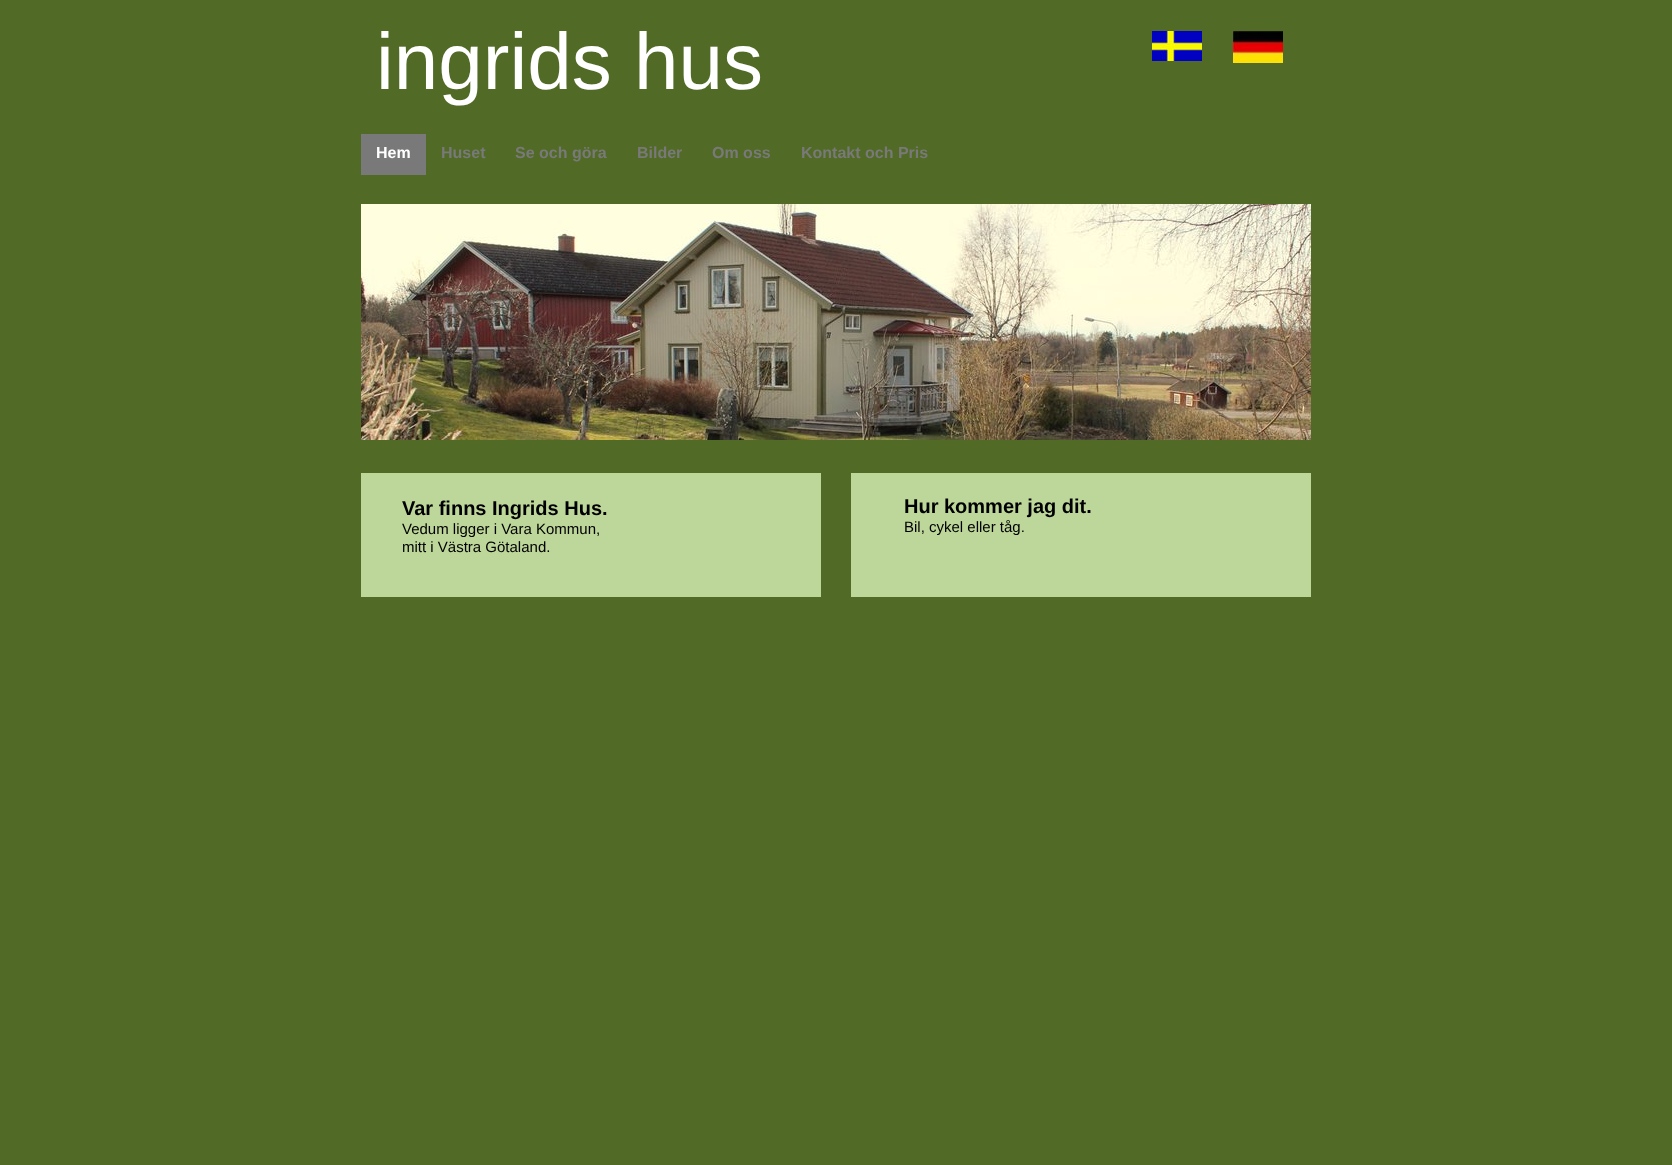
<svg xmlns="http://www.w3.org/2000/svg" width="1672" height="1165">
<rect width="100%" height="100%" fill="#516b26"/>
<text x="376" y="89" style="font-family:Liberation Sans;font-size:80px;fill:#fff">ingrids hus</text>
<image x="1152" y="31" width="50" height="30" href="media/1.png"/>
<image x="1233" y="31" width="50" height="32" href="media/2.png"/>
<rect x="361" y="134" width="65" height="41" fill="#797979"/>
<text x="376" y="158" style="font-family:Liberation Sans;font-size:16px;font-weight:bold;fill:#fff">Hem</text>
<text x="441" y="158" style="font-family:Liberation Sans;font-size:16px;font-weight:bold;fill:#797979">Huset</text>
<text x="515" y="158" style="font-family:Liberation Sans;font-size:16px;font-weight:bold;fill:#797979">Se och göra</text>
<text x="637" y="158" style="font-family:Liberation Sans;font-size:16px;font-weight:bold;fill:#797979">Bilder</text>
<text x="712" y="158" style="font-family:Liberation Sans;font-size:16px;font-weight:bold;fill:#797979">Om oss</text>
<text x="801" y="158" style="font-family:Liberation Sans;font-size:16px;font-weight:bold;fill:#797979">Kontakt och Pris</text>
<image x="361" y="204" width="950" height="236" href="media/3.png"/>
<rect x="361" y="473" width="460" height="124" fill="#bdd699"/>
<text x="402" y="515" style="font-family:Liberation Sans;font-size:20px;font-weight:bold;fill:#000">Var finns Ingrids Hus.</text>
<text x="402" y="534" style="font-family:Liberation Sans;font-size:15px;fill:#000">Vedum ligger i Vara Kommun,</text>
<text x="402" y="552" style="font-family:Liberation Sans;font-size:15px;fill:#000">mitt i Västra Götaland.</text>
<rect x="851" y="473" width="460" height="124" fill="#bdd699"/>
<text x="904" y="513" style="font-family:Liberation Sans;font-size:20px;font-weight:bold;fill:#000">Hur kommer jag dit.</text>
<text x="904" y="532" style="font-family:Liberation Sans;font-size:15px;fill:#000">Bil, cykel eller tåg.</text>
</svg>
